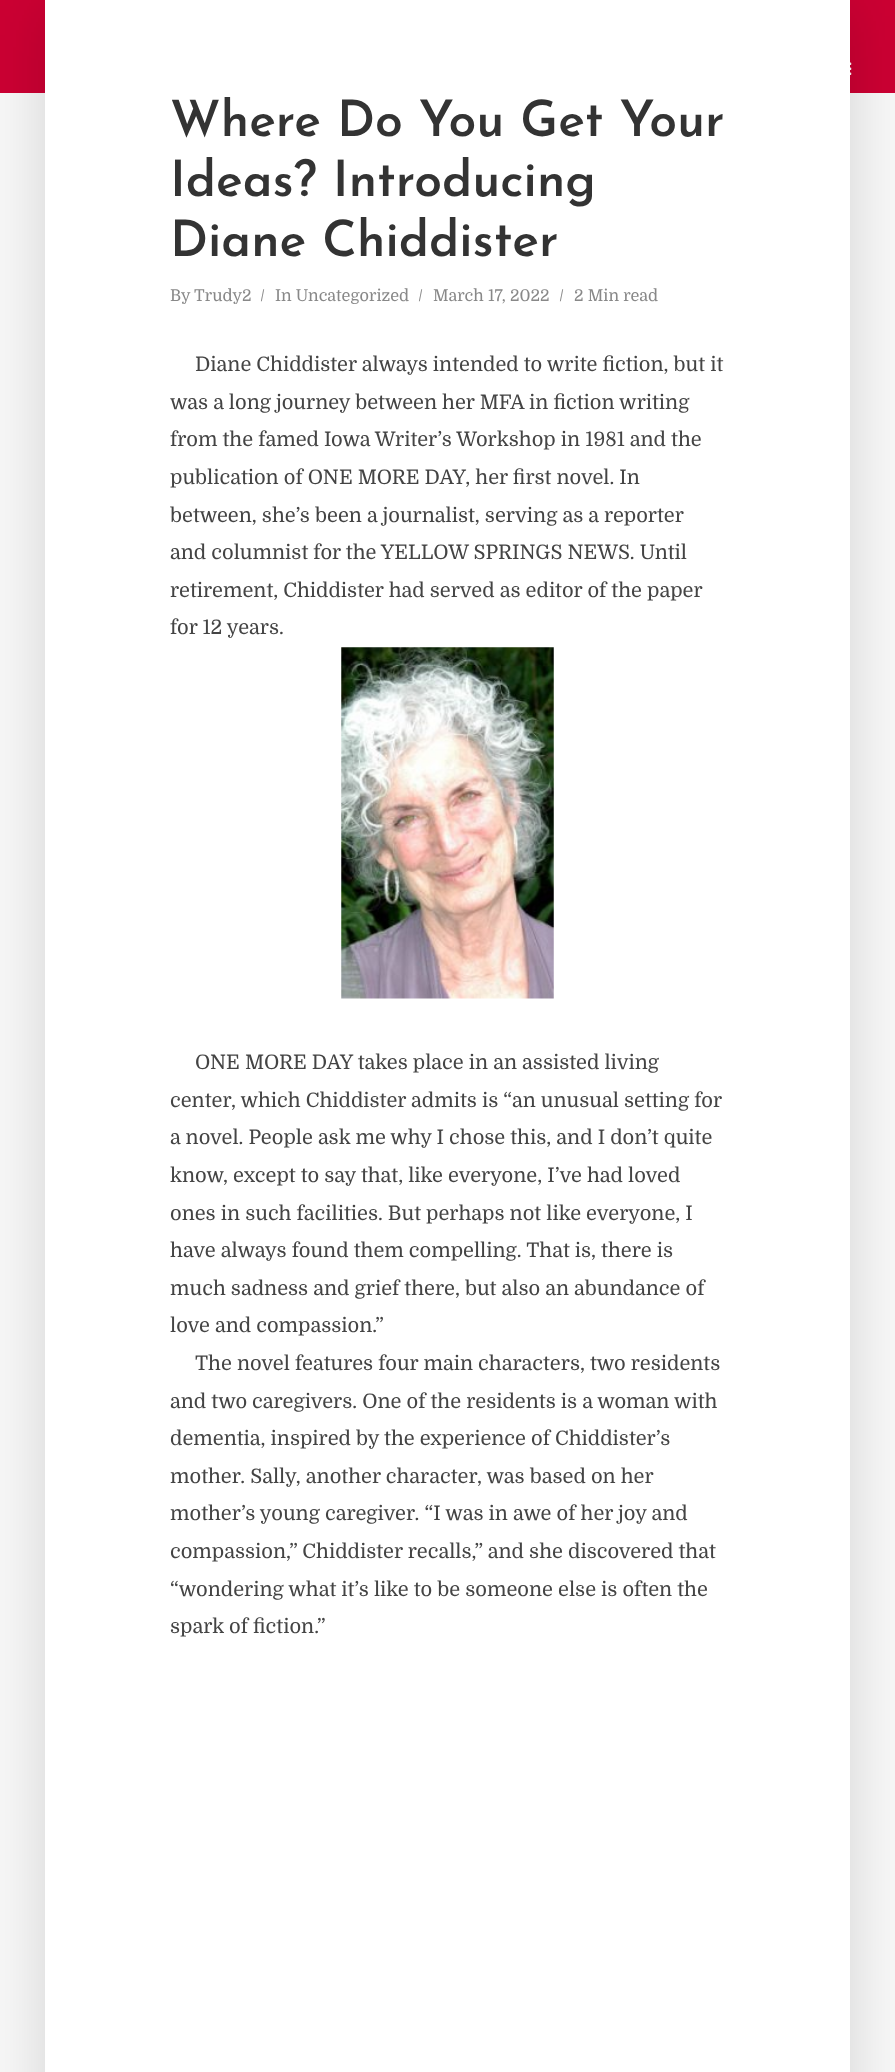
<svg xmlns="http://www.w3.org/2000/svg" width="895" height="2072">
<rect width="100%" height="100%" fill="#c03"/>
<image x="850" y="62" width="2" height="13" href="media/1.png"/>
<rect y="93" width="895" height="1979" fill="#f8f8f8"/>
<rect x="45" y="6" width="805" height="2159" fill="#01010126" filter="blur(31px)"/>
<rect x="45" width="805" height="2072" fill="#fff"/>
<text x="170" y="136" style="font-family:Josefin Sans;font-size:50px;font-weight:600;fill:#333">Where Do You Get Your</text>
<text x="170" y="196" style="font-family:Josefin Sans;font-size:50px;font-weight:600;fill:#333">Ideas? Introducing</text>
<text x="170" y="256" style="font-family:Josefin Sans;font-size:50px;font-weight:600;fill:#333">Diane Chiddister</text>
<text x="170" y="301" style="font-family:Domine;font-size:16.25px;fill:#888">By</text>
<text x="194" y="301" style="font-family:Domine;font-size:16.25px;fill:#888">Trudy2</text>
<text x="260" y="301" style="font-family:Domine;font-size:16.25px;fill:#888">/</text>
<text x="275" y="301" style="font-family:Domine;font-size:16.25px;fill:#888">In Uncategorized</text>
<text x="418" y="301" style="font-family:Domine;font-size:16.25px;fill:#888">/</text>
<text x="433" y="301" style="font-family:Domine;font-size:16.25px;fill:#888">March 17, 2022</text>
<text x="559" y="301" style="font-family:Domine;font-size:16.25px;fill:#888">/</text>
<text x="574" y="301" style="font-family:Domine;font-size:16.25px;fill:#888">2 Min read</text>
<text x="195" y="371" style="font-family:Domine;font-size:20px;fill:#444">Diane Chiddister always intended to write fiction, but it</text>
<text x="170" y="409" style="font-family:Domine;font-size:20px;fill:#444">was a long journey between her MFA in fiction writing</text>
<text x="170" y="446" style="font-family:Domine;font-size:20px;fill:#444">from the famed Iowa Writer’s Workshop in 1981 and the</text>
<text x="170" y="484" style="font-family:Domine;font-size:20px;fill:#444">publication of ONE MORE DAY, her first novel. In</text>
<text x="170" y="522" style="font-family:Domine;font-size:20px;fill:#444">between, she’s been a journalist, serving as a reporter</text>
<text x="170" y="559" style="font-family:Domine;font-size:20px;fill:#444">and columnist for the YELLOW SPRINGS NEWS. Until</text>
<text x="170" y="597" style="font-family:Domine;font-size:20px;fill:#444">retirement, Chiddister had served as editor of the paper</text>
<text x="170" y="634" style="font-family:Domine;font-size:20px;fill:#444">for 12 years.</text>
<image x="341" y="647" width="213" height="352" href="media/2.png"/>
<text x="195" y="1069" style="font-family:Domine;font-size:20px;fill:#444">ONE MORE DAY takes place in an assisted living</text>
<text x="170" y="1107" style="font-family:Domine;font-size:20px;fill:#444">center, which Chiddister admits is “an unusual setting for</text>
<text x="170" y="1144" style="font-family:Domine;font-size:20px;fill:#444">a novel. People ask me why I chose this, and I don’t quite</text>
<text x="170" y="1182" style="font-family:Domine;font-size:20px;fill:#444">know, except to say that, like everyone, I’ve had loved</text>
<text x="170" y="1220" style="font-family:Domine;font-size:20px;fill:#444">ones in such facilities. But perhaps not like everyone, I</text>
<text x="170" y="1257" style="font-family:Domine;font-size:20px;fill:#444">have always found them compelling. That is, there is</text>
<text x="170" y="1295" style="font-family:Domine;font-size:20px;fill:#444">much sadness and grief there, but also an abundance of</text>
<text x="170" y="1332" style="font-family:Domine;font-size:20px;fill:#444">love and compassion.”</text>
<text x="195" y="1370" style="font-family:Domine;font-size:20px;fill:#444">The novel features four main characters, two residents</text>
<text x="170" y="1408" style="font-family:Domine;font-size:20px;fill:#444">and two caregivers. One of the residents is a woman with</text>
<text x="170" y="1445" style="font-family:Domine;font-size:20px;fill:#444">dementia, inspired by the experience of Chiddister’s</text>
<text x="170" y="1483" style="font-family:Domine;font-size:20px;fill:#444">mother. Sally, another character, was based on her</text>
<text x="170" y="1520" style="font-family:Domine;font-size:20px;fill:#444">mother’s young caregiver. “I was in awe of her joy and</text>
<text x="170" y="1558" style="font-family:Domine;font-size:20px;fill:#444">compassion,” Chiddister recalls,” and she discovered that</text>
<text x="170" y="1596" style="font-family:Domine;font-size:20px;fill:#444">“wondering what it’s like to be someone else is often the</text>
<text x="170" y="1633" style="font-family:Domine;font-size:20px;fill:#444">spark of fiction.”</text>
</svg>
